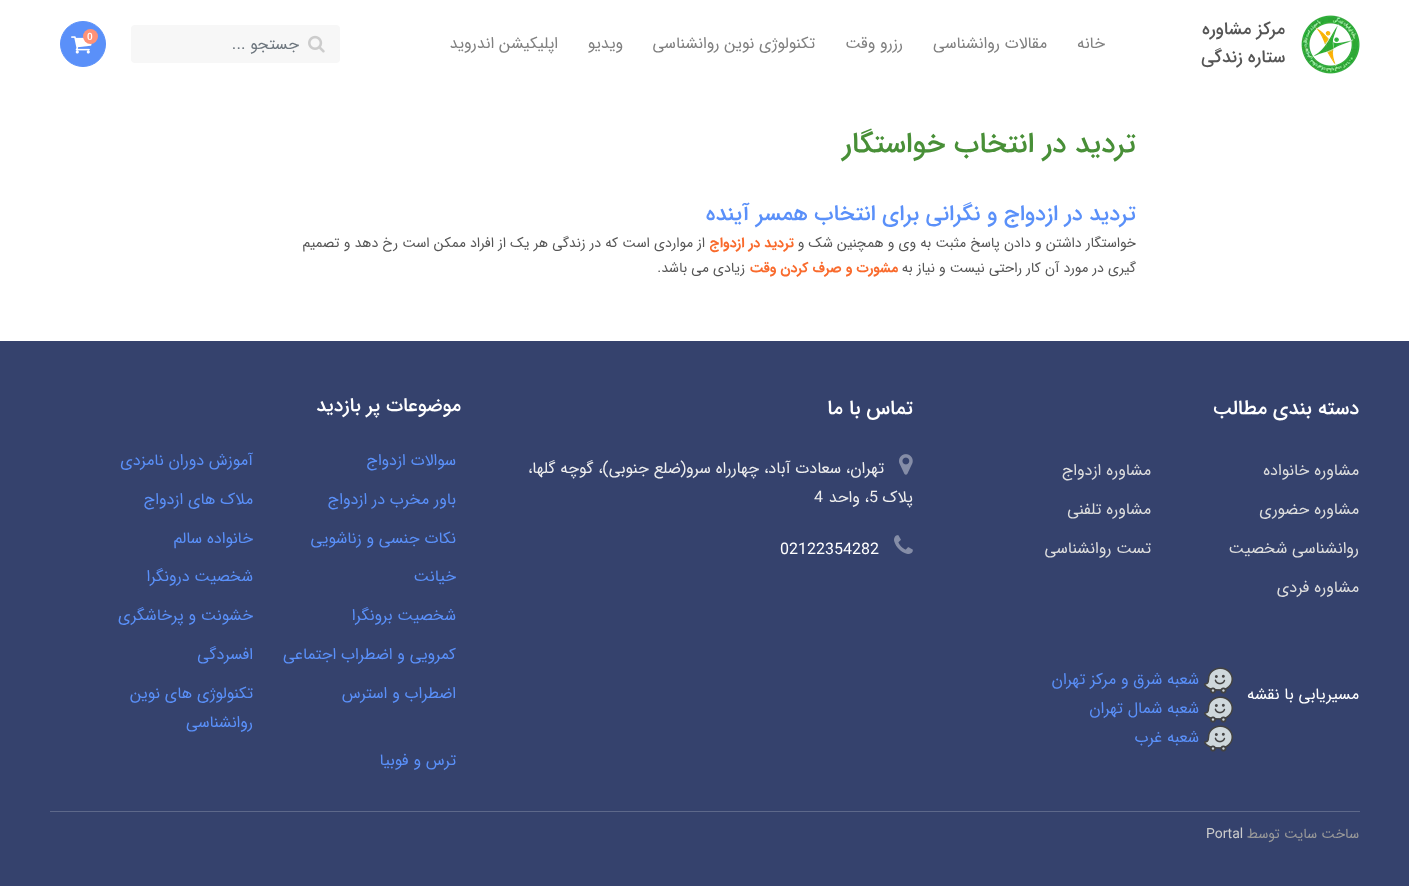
<svg xmlns="http://www.w3.org/2000/svg" width="1409" height="886">
<rect width="100%" height="100%" fill="#fff"/>
<image x="1301" y="15" width="59" height="59" href="media/1.png"/>
<text x="1285" y="34" style="font-family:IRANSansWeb;font-size:17.5px;font-weight:500;direction:rtl;fill:#555">مرکز مشاوره</text>
<text x="1285" y="62" style="font-family:IRANSansWeb;font-size:17.5px;font-weight:500;direction:rtl;fill:#555">ستاره زندگی</text>
<text x="1105" y="48" style="font-family:IRANSansWeb;font-size:16px;direction:rtl;fill:#808080">خانه</text>
<text x="1047" y="48" style="font-family:IRANSansWeb;font-size:16px;direction:rtl;fill:#808080">مقالات روانشناسی</text>
<text x="903" y="48" style="font-family:IRANSansWeb;font-size:16px;direction:rtl;fill:#808080">رزرو وقت</text>
<text x="815" y="48" style="font-family:IRANSansWeb;font-size:16px;direction:rtl;fill:#808080">تکنولوژی نوین روانشناسی</text>
<text x="623" y="48" style="font-family:IRANSansWeb;font-size:16px;direction:rtl;fill:#808080">ویدیو</text>
<text x="558" y="48" style="font-family:IRANSansWeb;font-size:16px;direction:rtl;fill:#808080">اپلیکیشن اندروید</text>
<circle cx="83" cy="44" r="22.5" fill="#5a90f9" stroke="#5a90f9"/>
<image x="71" y="36" width="21" height="18" href="media/2.png"/>
<circle cx="90.5" cy="36.5" r="7.5" fill="#ff9277"/>
<text x="87" y="40" style="font-family:IRANSansWeb;font-size:10px;font-weight:500;fill:#fff">0</text>
<rect x="131" y="25" width="209" height="38" rx="4" fill="#f7f7f7"/>
<image x="308" y="35" width="17" height="18" href="media/3.png"/>
<text x="299" y="49" style="font-family:IRANSansWeb;font-size:16px;direction:rtl;fill:#6c757d">جستجو ...</text>
<text x="1136" y="152" style="font-family:IRANSansWeb;font-size:28.75px;font-weight:500;direction:rtl;fill:#488f37">تردید در انتخاب خواستگار</text>
<text x="1136" y="220" style="font-family:IRANSansWeb;font-size:22px;font-weight:500;direction:rtl;fill:#5a90f9">تردید در ازدواج و نگرانی برای انتخاب همسر آینده</text>
<text x="1136" y="247" style="font-family:IRANSansWeb;font-size:14px;direction:rtl;fill:#555">خواستگار داشتن و دادن پاسخ مثبت به وی و همچنین شک و</text>
<text x="794" y="247" style="font-family:IRANSansWeb;font-size:14px;font-weight:bold;direction:rtl;fill:#f96a2c">تردید در ازدواج</text>
<text x="705" y="247" style="font-family:IRANSansWeb;font-size:14px;direction:rtl;fill:#555">از مواردی است که در زندگی هر یک از افراد ممکن است رخ دهد و تصمیم</text>
<text x="1136" y="272" style="font-family:IRANSansWeb;font-size:14px;direction:rtl;fill:#555">گیری در مورد آن کار راحتی نیست و نیاز به</text>
<text x="898" y="272" style="font-family:IRANSansWeb;font-size:14px;font-weight:bold;direction:rtl;fill:#f96a2c">مشورت و صرف کردن وقت</text>
<text x="745" y="272" style="font-family:IRANSansWeb;font-size:14px;direction:rtl;fill:#555">زیادی می باشد.</text>
<rect y="341" width="1409" height="545" fill="#35426d"/>
<text x="1359" y="414" style="font-family:IRANSansWeb;font-size:20px;font-weight:500;direction:rtl;fill:#fff">دسته بندی مطالب</text>
<text x="1359" y="475" style="font-family:IRANSansWeb;font-size:16px;direction:rtl;fill:#ddd">مشاوره خانواده</text>
<text x="1151" y="475" style="font-family:IRANSansWeb;font-size:16px;direction:rtl;fill:#ddd">مشاوره ازدواج</text>
<text x="1359" y="514" style="font-family:IRANSansWeb;font-size:16px;direction:rtl;fill:#ddd">مشاوره حضوری</text>
<text x="1151" y="514" style="font-family:IRANSansWeb;font-size:16px;direction:rtl;fill:#ddd">مشاوره تلفنی</text>
<text x="1359" y="553" style="font-family:IRANSansWeb;font-size:16px;direction:rtl;fill:#ddd">روانشناسی شخصیت</text>
<text x="1151" y="553" style="font-family:IRANSansWeb;font-size:16px;direction:rtl;fill:#ddd">تست روانشناسی</text>
<text x="1359" y="592" style="font-family:IRANSansWeb;font-size:16px;direction:rtl;fill:#ddd">مشاوره فردی</text>
<text x="1359" y="699" style="font-family:IRANSansWeb;font-size:16px;direction:rtl;fill:#fff">مسیریابی با نقشه</text>
<image x="1204" y="667" width="29" height="27" href="media/4.png"/>
<text x="1199" y="684" style="font-family:IRANSansWeb;font-size:16px;direction:rtl;fill:#5a90f9">شعبه شرق و مرکز تهران</text>
<image x="1204" y="696" width="29" height="27" href="media/4.png"/>
<text x="1199" y="713" style="font-family:IRANSansWeb;font-size:16px;direction:rtl;fill:#5a90f9">شعبه شمال تهران</text>
<image x="1204" y="725" width="29" height="27" href="media/4.png"/>
<text x="1199" y="742" style="font-family:IRANSansWeb;font-size:16px;direction:rtl;fill:#5a90f9">شعبه غرب</text>
<text x="913" y="414" style="font-family:IRANSansWeb;font-size:20px;font-weight:500;direction:rtl;fill:#fff">تماس با ما</text>
<image x="899" y="454" width="14" height="21" href="media/5.png"/>
<text x="884" y="473" style="font-family:IRANSansWeb;font-size:16px;direction:rtl;fill:#eee">تهران، سعادت آباد، چهارراه سرو(ضلع جنوبی)، گوچه گلها،</text>
<text x="913" y="502" style="font-family:IRANSansWeb;font-size:16px;direction:rtl;fill:#eee">پلاک</text>
<text x="869" y="502" style="font-family:IRANSansWeb;font-size:16px;fill:#eee">5</text>
<text x="869" y="502" style="font-family:IRANSansWeb;font-size:16px;direction:rtl;fill:#eee">، واحد</text>
<text x="814" y="502" style="font-family:IRANSansWeb;font-size:16px;fill:#eee">4</text>
<image x="894" y="535" width="19" height="19" href="media/6.png"/>
<text x="780" y="554" style="font-family:IRANSansWeb;font-size:16px;fill:#fff">02122354282</text>
<text x="461" y="411" style="font-family:IRANSansWeb;font-size:19.25px;font-weight:500;direction:rtl;fill:#fff">موضوعات پر بازدید</text>
<text x="456" y="465" style="font-family:IRANSansWeb;font-size:16px;direction:rtl;fill:#5a90f9">سوالات ازدواج</text>
<text x="253" y="465" style="font-family:IRANSansWeb;font-size:16px;direction:rtl;fill:#5a90f9">آموزش دوران نامزدی</text>
<text x="456" y="504" style="font-family:IRANSansWeb;font-size:16px;direction:rtl;fill:#5a90f9">باور مخرب در ازدواج</text>
<text x="253" y="504" style="font-family:IRANSansWeb;font-size:16px;direction:rtl;fill:#5a90f9">ملاک های ازدواج</text>
<text x="456" y="543" style="font-family:IRANSansWeb;font-size:16px;direction:rtl;fill:#5a90f9">نکات جنسی و زناشویی</text>
<text x="253" y="543" style="font-family:IRANSansWeb;font-size:16px;direction:rtl;fill:#5a90f9">خانواده سالم</text>
<text x="456" y="581" style="font-family:IRANSansWeb;font-size:16px;direction:rtl;fill:#5a90f9">خیانت</text>
<text x="253" y="581" style="font-family:IRANSansWeb;font-size:16px;direction:rtl;fill:#5a90f9">شخصیت درونگرا</text>
<text x="456" y="620" style="font-family:IRANSansWeb;font-size:16px;direction:rtl;fill:#5a90f9">شخصیت برونگرا</text>
<text x="253" y="620" style="font-family:IRANSansWeb;font-size:16px;direction:rtl;fill:#5a90f9">خشونت و پرخاشگری</text>
<text x="456" y="659" style="font-family:IRANSansWeb;font-size:16px;direction:rtl;fill:#5a90f9">کمرویی و اضطراب اجتماعی</text>
<text x="253" y="659" style="font-family:IRANSansWeb;font-size:16px;direction:rtl;fill:#5a90f9">افسردگی</text>
<text x="456" y="698" style="font-family:IRANSansWeb;font-size:16px;direction:rtl;fill:#5a90f9">اضطراب و استرس</text>
<text x="253" y="698" style="font-family:IRANSansWeb;font-size:16px;direction:rtl;fill:#5a90f9">تکنولوژی های نوین</text>
<text x="253" y="727" style="font-family:IRANSansWeb;font-size:16px;direction:rtl;fill:#5a90f9">روانشناسی</text>
<text x="456" y="765" style="font-family:IRANSansWeb;font-size:16px;direction:rtl;fill:#5a90f9">ترس و فوبیا</text>
<rect x="50" y="811" width="1310" height="1" fill="#5d688a"/>
<text x="1359" y="838" style="font-family:IRANSansWeb;font-size:14px;direction:rtl;fill:#999">ساخت سایت توسط</text>
<text x="1206" y="838" style="font-family:IRANSansWeb;font-size:14px;fill:#ccc">Portal</text>
</svg>
